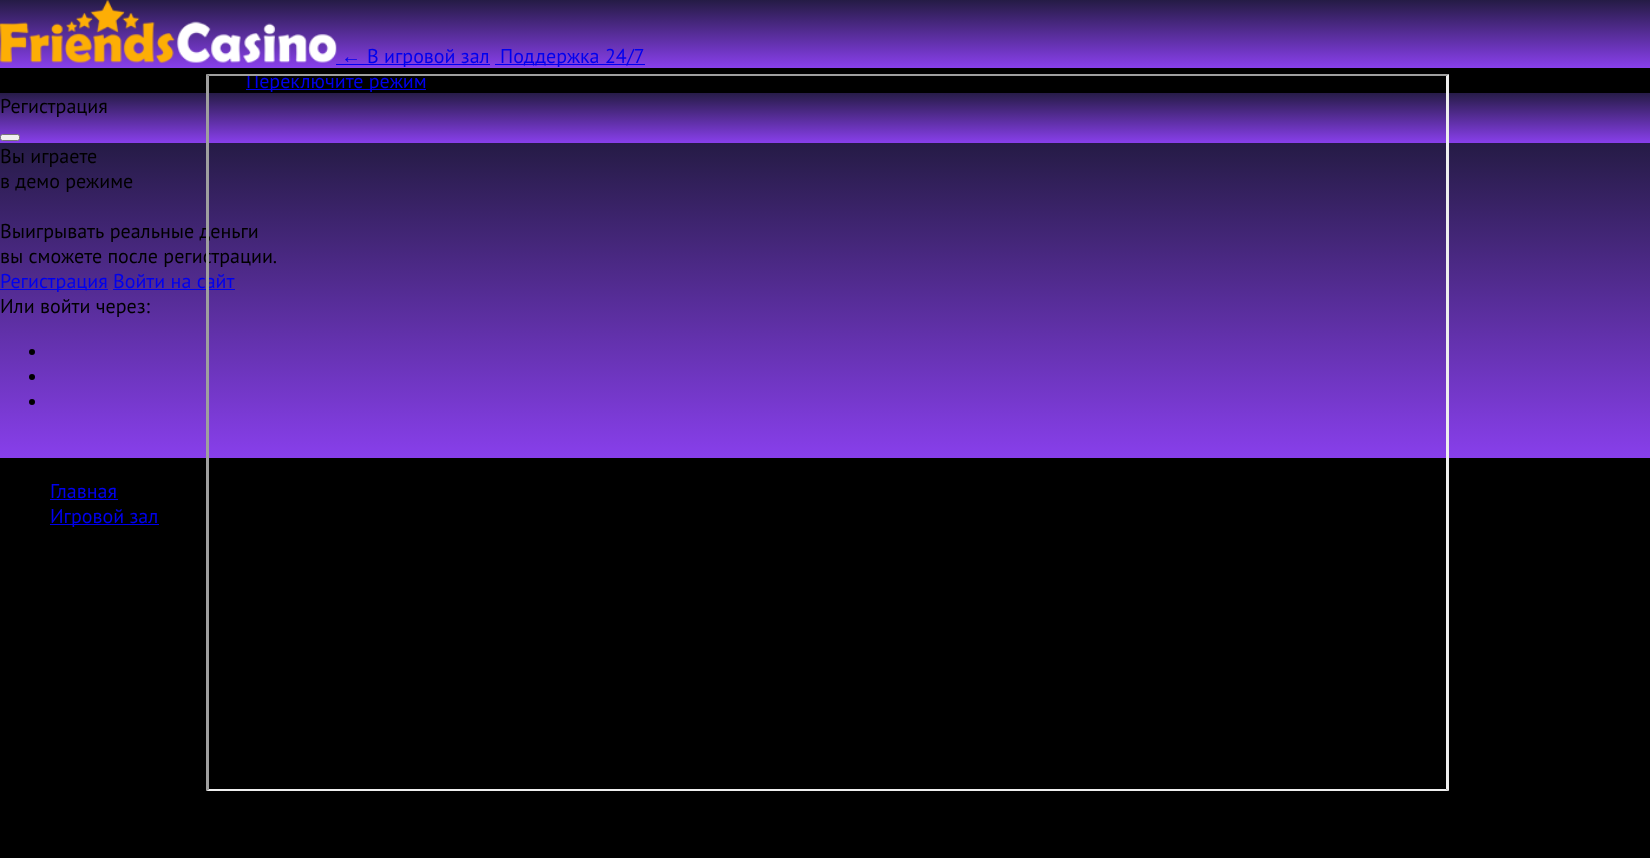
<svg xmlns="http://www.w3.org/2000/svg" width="1650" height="858">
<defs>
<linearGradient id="g1" gradientUnits="userSpaceOnUse" x1="825" y1="0" x2="825" y2="68"><stop offset="0" stop-color="#251b45"/><stop offset="1" stop-color="#883feb"/></linearGradient>
<linearGradient id="g2" gradientUnits="userSpaceOnUse" x1="825" y1="92" x2="825" y2="143"><stop offset="0" stop-color="#251b45"/><stop offset="1" stop-color="#883feb"/></linearGradient>
<linearGradient id="g3" gradientUnits="userSpaceOnUse" x1="825" y1="142" x2="825" y2="458"><stop offset="0" stop-color="#251b45"/><stop offset="1" stop-color="#883feb"/></linearGradient>
</defs>
<rect width="100%" height="100%" fill="#000"/>
<rect width="1650" height="68" fill="url(#g1)"/>
<image x="0" y="0" width="337" height="63" href="media/1.png"/>
<text x="341" y="63" style="font-family:Liberation Sans;font-size:20px;fill:#00e">←</text>
<rect x="336" y="64" width="154" height="1" fill="#00e"/>
<text x="367" y="63" style="font-family:PT Sans;font-size:20px;fill:#00e">В игровой зал</text>
<rect x="495" y="64" width="150" height="1" fill="#00e"/>
<text x="500" y="63" style="font-family:PT Sans;font-size:20px;fill:#00e">Поддержка 24/7</text>
<rect x="246" y="89" width="180" height="1" fill="#00e"/>
<text x="246" y="88" style="font-family:PT Sans;font-size:20px;fill:#00e">Переключите режим</text>
<path d="M206 74h1243l-3 2h-1237z" fill="#9f9f9f"/>
<rect y="93" width="1650" height="50" fill="url(#g2)"/>
<rect y="143" width="1650" height="315" fill="url(#g3)"/>
<path d="M1449 74v717l-3-2v-713z" fill="#eee"/>
<path d="M1449 791h-1243l3-2h1237z" fill="#eee"/>
<text x="0" y="238" style="font-family:PT Sans;font-size:20px;fill:#000">Выигрывать реальные деньги</text>
<text x="0" y="263" style="font-family:PT Sans;font-size:20px;fill:#000">вы сможете после регистрации.</text>
<rect y="289" width="108" height="1" fill="#00e"/>
<text x="0" y="288" style="font-family:PT Sans;font-size:20px;fill:#00e">Регистрация Войти на сайт</text>
<rect x="113" y="289" width="122" height="1" fill="#00e"/>
<path d="M206 791v-717l3 2v713z" fill="#9f9f9f"/>
<text x="0" y="113" style="font-family:PT Sans;font-size:20px;fill:#000">Регистрация</text>
<rect x="0.5" y="134.5" width="19" height="6" rx="2" fill="#efefef" stroke="#767676"/>
<text x="0" y="163" style="font-family:PT Sans;font-size:20px;fill:#000">Вы играете</text>
<text x="0" y="188" style="font-family:PT Sans;font-size:20px;fill:#000">в демо режиме</text>
<text x="0" y="313" style="font-family:PT Sans;font-size:20px;fill:#000">Или войти через:</text>
<circle cx="32" cy="352" r="3" fill="#000"/>
<circle cx="32" cy="377" r="3" fill="#000"/>
<circle cx="32" cy="402" r="3" fill="#000"/>
<text x="50" y="498" style="font-family:PT Sans;font-size:20px;fill:#00e">Главная</text>
<rect x="50" y="499" width="68" height="1" fill="#00e"/>
<rect x="50" y="524" width="109" height="1" fill="#00e"/>
<text x="50" y="523" style="font-family:PT Sans;font-size:20px;fill:#00e">Игровой зал</text>
</svg>
